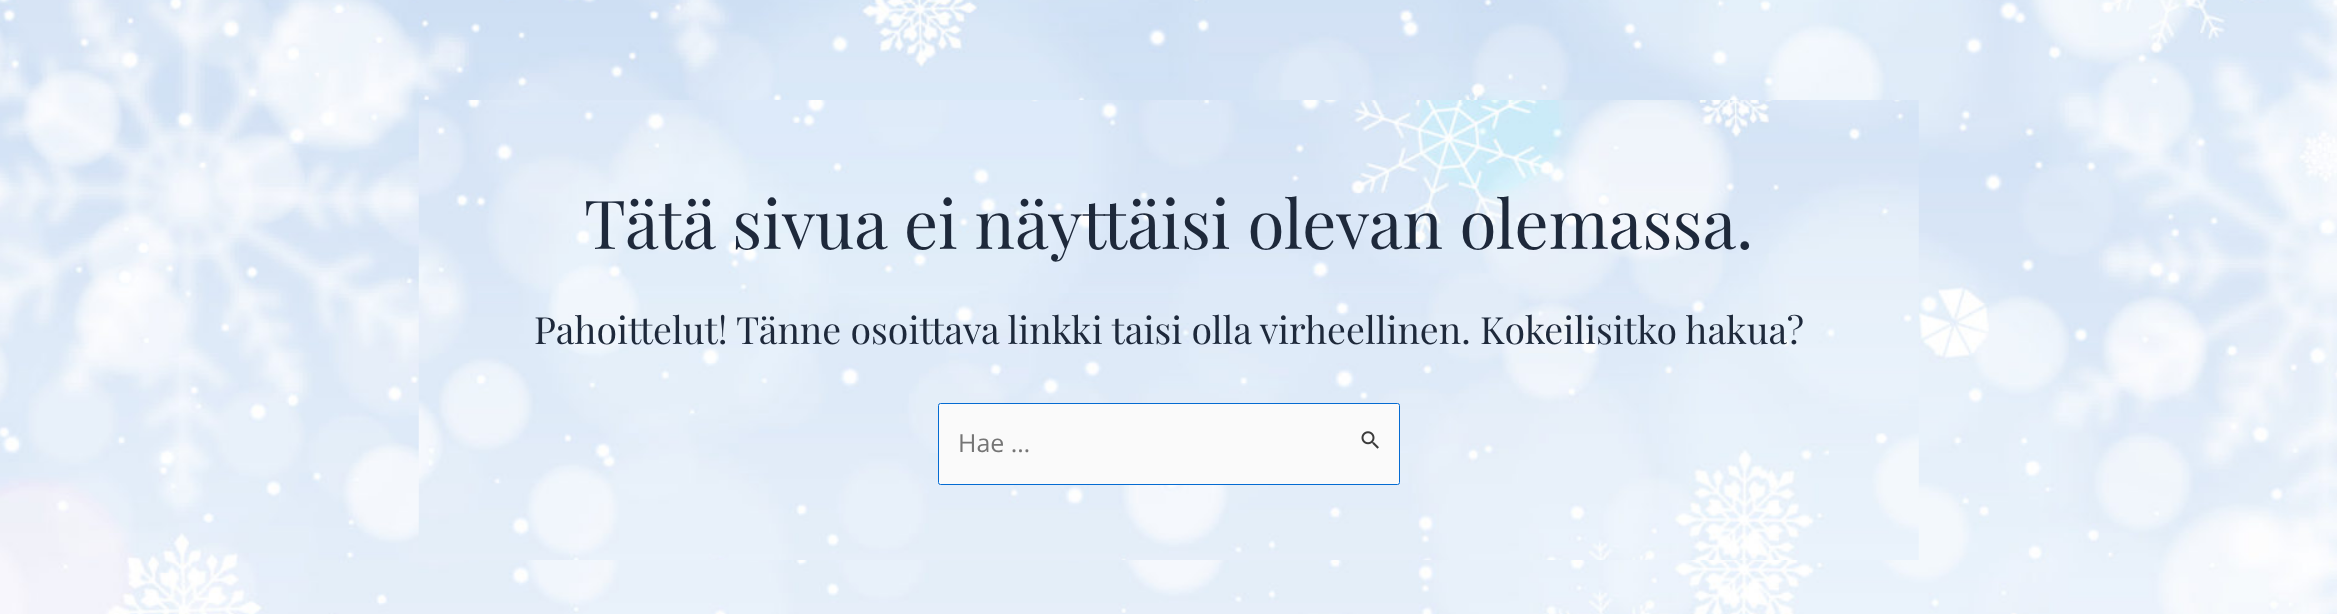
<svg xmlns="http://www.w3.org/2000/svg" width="2337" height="614">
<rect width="100%" height="100%" fill="#fff"/>
<image x="0" y="0" width="2337" height="614" href="media/1.png"/>
<image x="418" y="100" width="1501" height="460" href="media/2.png"/>
<text x="584" y="249" style="font-family:Playfair Display;font-size:67.5px;fill:#1e293b">Tätä sivua ei näyttäisi olevan olemassa.</text>
<text x="534" y="344" style="font-family:Playfair Display;font-size:37.5px;fill:#1e293b">Pahoittelut! Tänne osoittava linkki taisi olla virheellinen. Kokeilisitko hakua?</text>
<rect x="938.5" y="403.5" width="461" height="81" rx="2" fill="#fafafa" stroke="#046bd2"/>
<text x="958" y="452" style="font-family:Open Sans;font-size:25px;fill:#757575">Hae …</text>
<image x="1361" y="431" width="18" height="18" href="media/3.png"/>
</svg>
